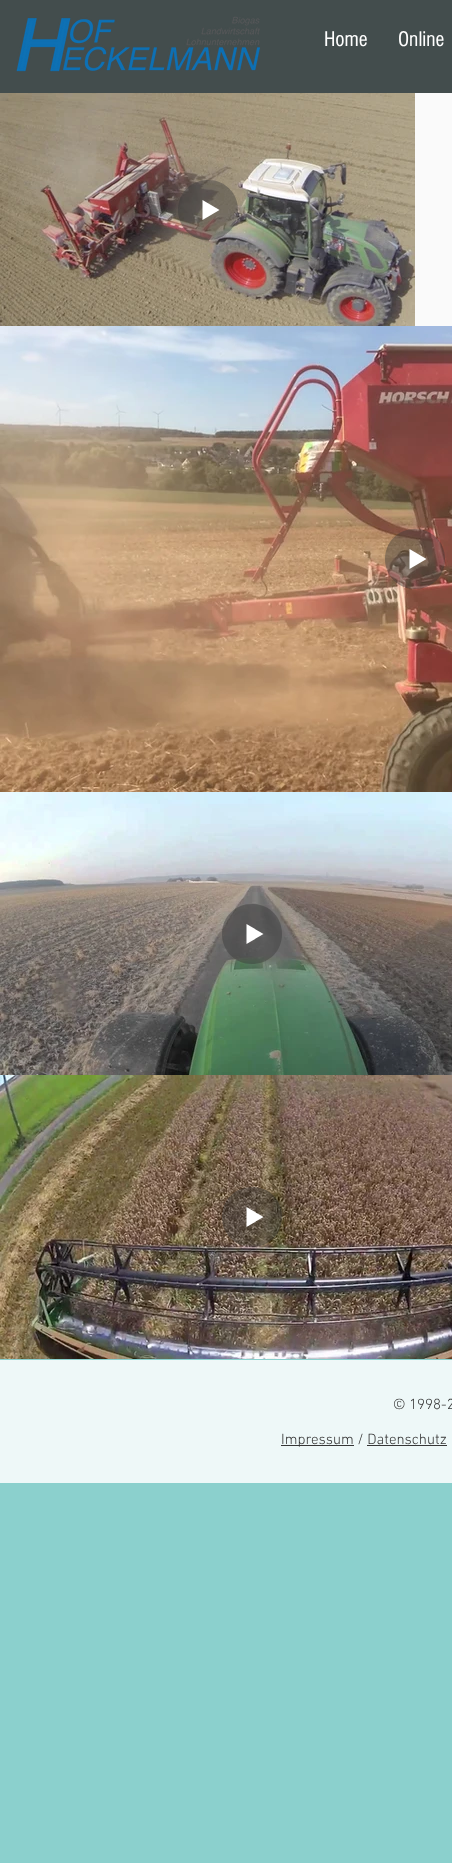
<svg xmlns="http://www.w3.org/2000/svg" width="452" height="1863">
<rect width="100%" height="100%" fill="#8bd0cd"/>
<rect width="452" height="93" fill="#434d4d"/>
<image x="16" y="16" width="244" height="56" href="media/1.png"/>
<text x="324" y="46" style="font-family:'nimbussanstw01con';font-size:22px;fill:#fff">Home</text>
<text x="398" y="46" style="font-family:'nimbussanstw01con';font-size:22px;fill:#fff">Online</text>
<image x="0" y="93" width="415" height="233" href="media/2.png"/>
<path d="M208 180c17 0 30 13 30 30c0 17-13 30-30 30c-17 0-30-13-30-30c0-17 13-30 30-30z" fill="#3636366b" fill-rule="evenodd"/>
<path d="M219.5 210l-17 10v-20z" fill="#fff"/>
<rect x="415" y="93" width="37" height="233" fill="#fafafa"/>
<image x="0" y="326" width="452" height="466" href="media/3.png"/>
<path d="M415 529c17 0 30 13 30 30c0 17-13 30-30 30c-17 0-30-13-30-30c0-17 13-30 30-30z" fill="#3636366b" fill-rule="evenodd"/>
<path d="M426.5 559l-17 10v-20z" fill="#fff"/>
<image x="0" y="792" width="452" height="283" href="media/4.png"/>
<path d="M252 904c17 0 30 13 30 30c0 17-13 30-30 30c-17 0-30-13-30-30c0-17 13-30 30-30z" fill="#3636366b" fill-rule="evenodd"/>
<path d="M263.5 934l-17 10v-20z" fill="#fff"/>
<image x="0" y="1075" width="452" height="284" href="media/5.png"/>
<path d="M252 1187c17 0 30 13 30 30c0 17-13 30-30 30c-17 0-30-13-30-30c0-17 13-30 30-30z" fill="#3636366b" fill-rule="evenodd"/>
<path d="M263.5 1217l-17 10v-20z" fill="#fff"/>
<rect y="1360" width="452" height="123" fill="#eef8f8"/>
<text x="393" y="1409" style="font-family:'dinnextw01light';font-size:15px;font-weight:300;fill:#363636">© 1998-2</text>
<rect x="281" y="1445" width="73" height="1" fill="#363636"/>
<text x="281" y="1444" style="font-family:'dinnextw01light';font-size:15px;font-weight:300;fill:#363636">Impressum / Datenschutz</text>
<rect x="367" y="1445" width="80" height="1" fill="#363636"/>
</svg>
